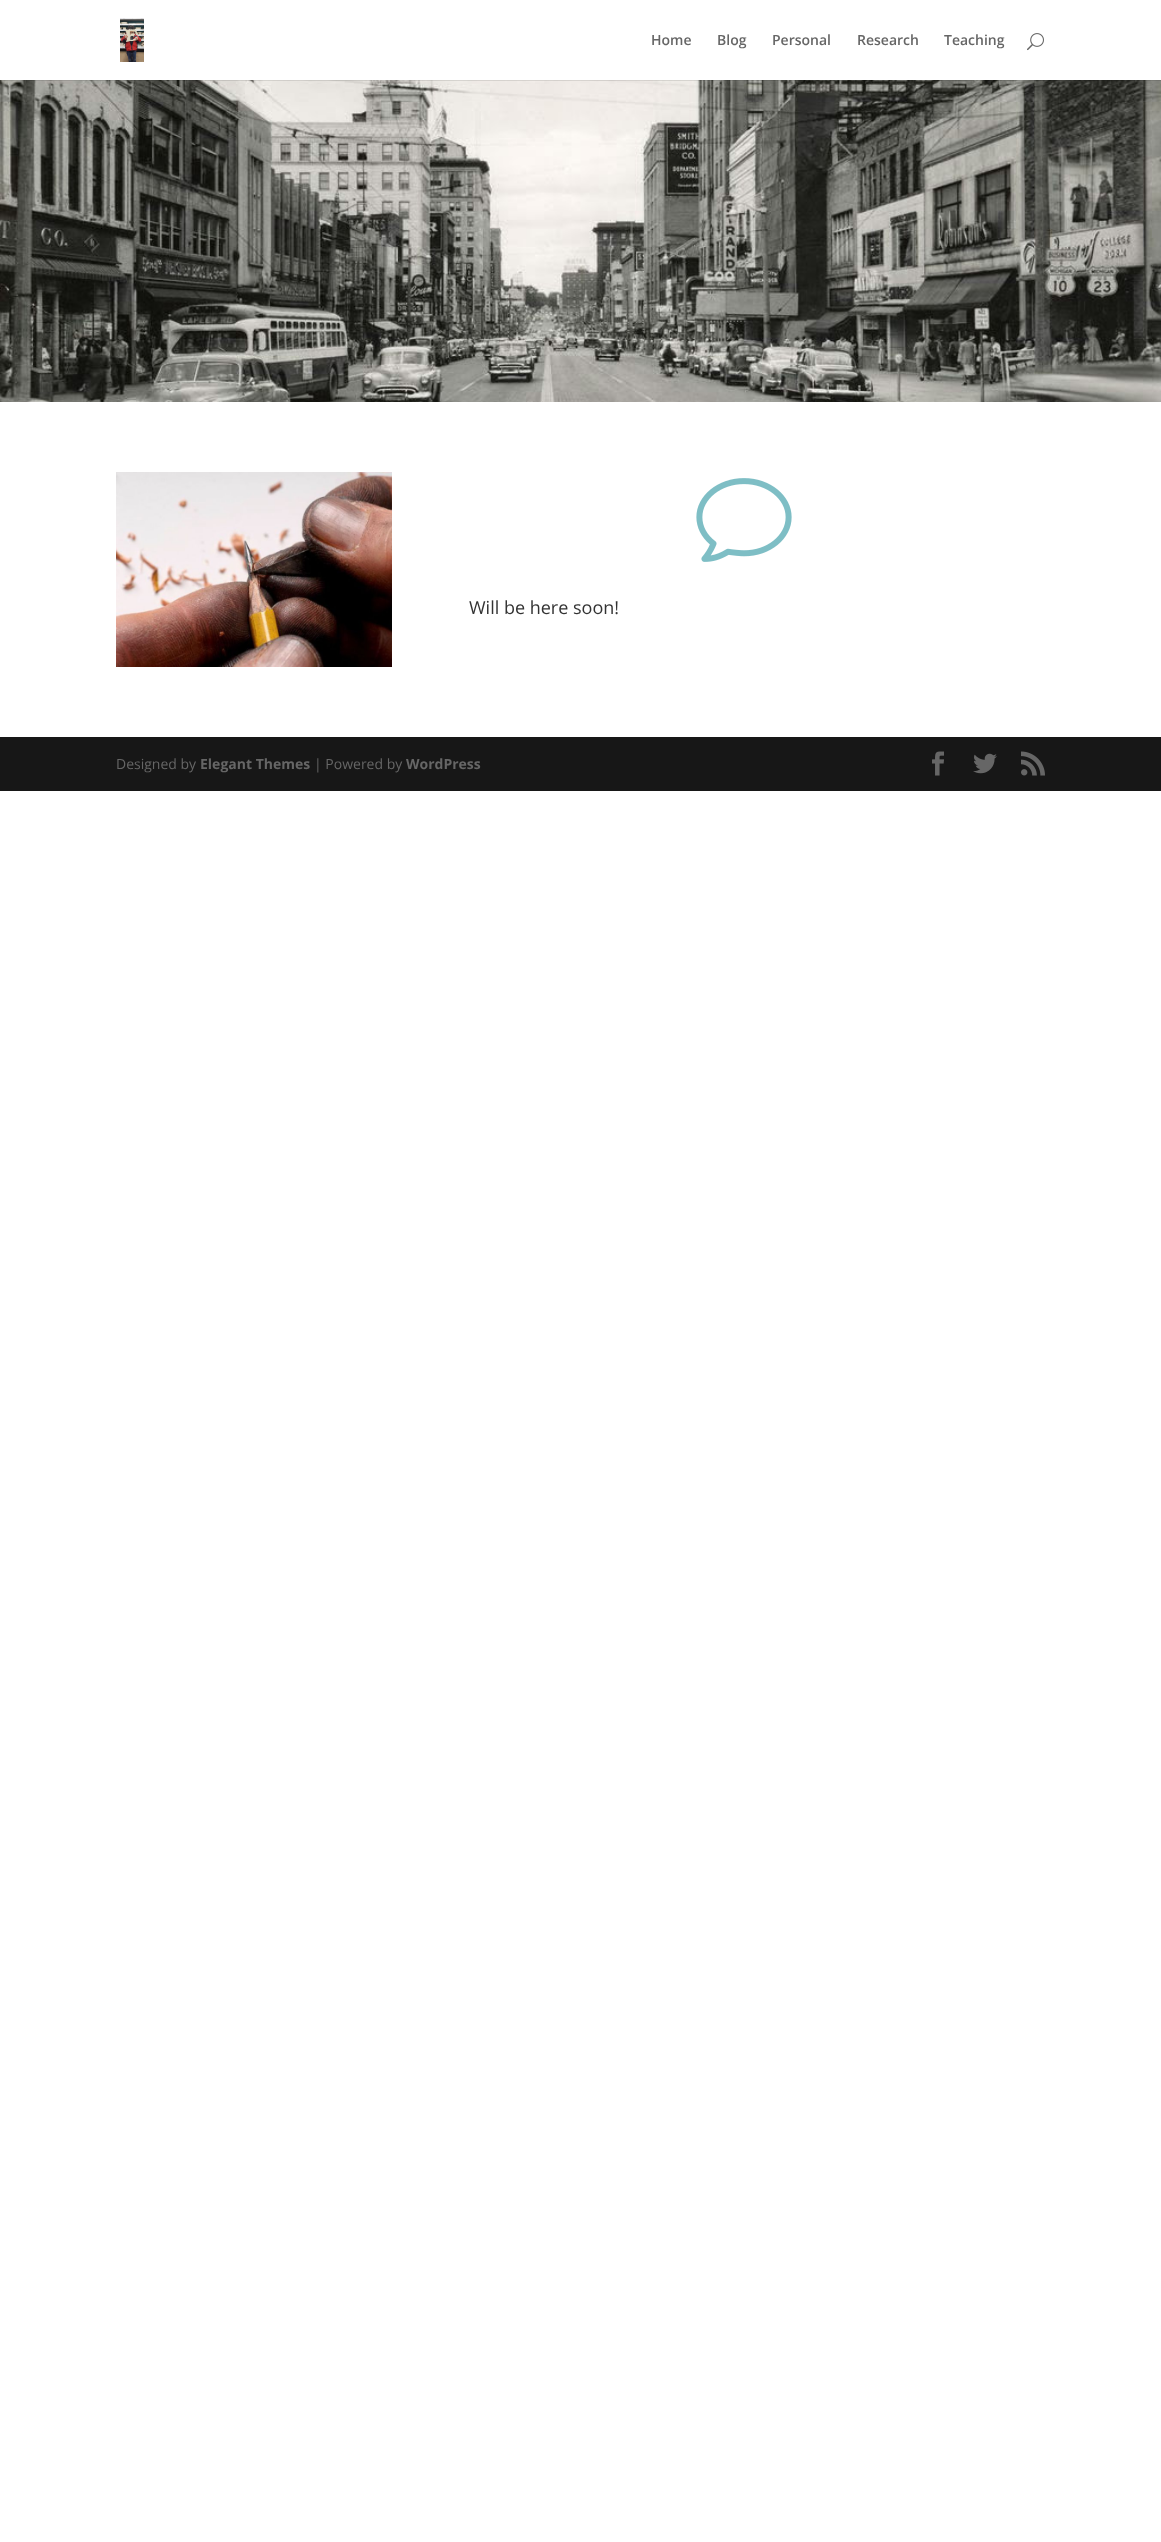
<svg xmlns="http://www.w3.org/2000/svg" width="1161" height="2542">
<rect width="100%" height="100%" fill="#fff"/>
<image x="0" y="80" width="1161" height="322" href="media/3.png"/>
<rect y="80" width="1161" height="1" fill="#0000001a"/>
<image x="120" y="18" width="24" height="44" href="media/1.png"/>
<text x="651" y="45" style="font-family:Open Sans;font-size:14px;font-weight:600;fill:#666">Home</text>
<text x="717" y="45" style="font-family:Open Sans;font-size:14px;font-weight:600;fill:#666">Blog</text>
<text x="772" y="45" style="font-family:Open Sans;font-size:14px;font-weight:600;fill:#666">Personal</text>
<text x="857" y="45" style="font-family:Open Sans;font-size:14px;font-weight:600;fill:#666">Research</text>
<text x="944" y="45" style="font-family:Open Sans;font-size:14px;font-weight:600;fill:#666">Teaching</text>
<image x="1027" y="33" width="17" height="18" href="media/2.png"/>
<image x="116" y="472" width="276" height="195" href="media/4.png"/>
<image x="696" y="478" width="96" height="84" href="media/5.png"/>
<text x="469" y="614" style="font-family:Open Sans;font-size:18px;fill:#333">Will be here soon!</text>
<rect y="737" width="1161" height="54" fill="#171717"/>
<text x="116" y="769" style="font-family:Open Sans;font-size:14px;fill:#666">Designed by</text>
<text x="200" y="769" style="font-family:Open Sans;font-size:14px;font-weight:bold;fill:#666">Elegant Themes</text>
<text x="314" y="769" style="font-family:Open Sans;font-size:14px;fill:#666">| Powered by</text>
<text x="406" y="769" style="font-family:Open Sans;font-size:14px;font-weight:bold;fill:#666">WordPress</text>
<image x="932" y="751" width="12" height="25" href="media/6.png"/>
<image x="973" y="753" width="24" height="21" href="media/7.png"/>
<image x="1021" y="751" width="24" height="25" href="media/8.png"/>
</svg>
